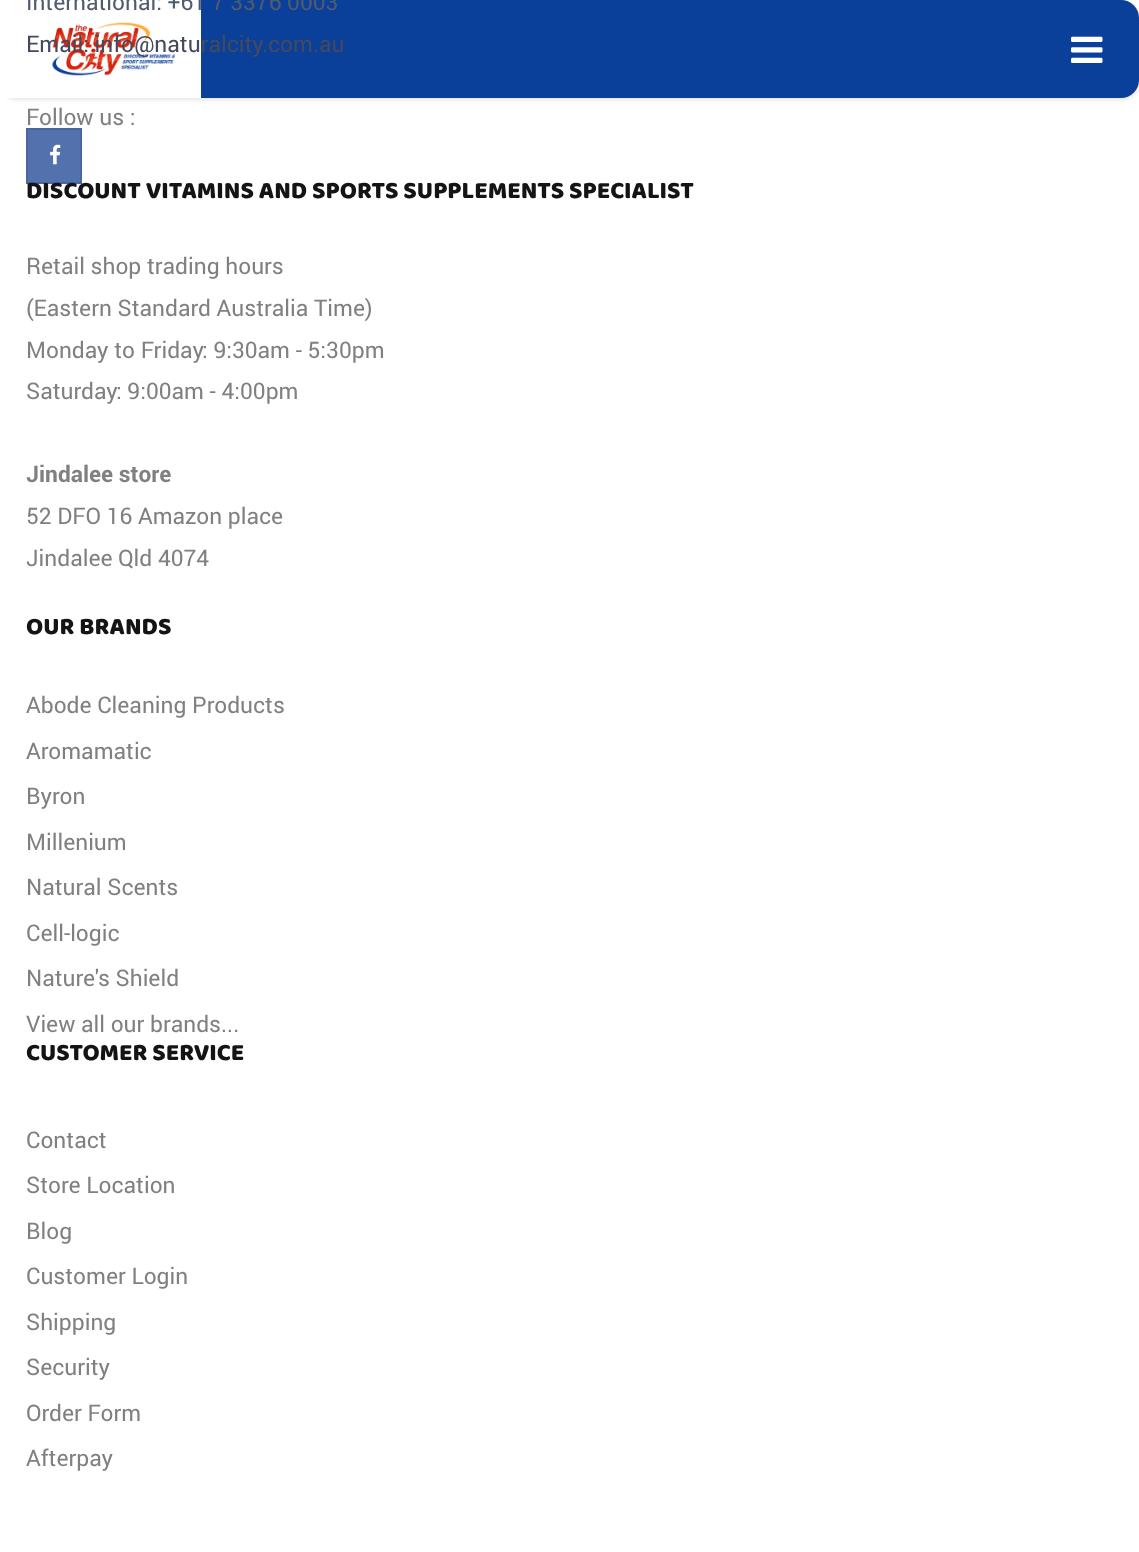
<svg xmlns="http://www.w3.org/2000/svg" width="1139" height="1552">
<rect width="100%" height="100%" fill="#fff"/>
<rect y="2" width="1139" height="98" rx="18" fill="#0000001a" filter="blur(2px)"/>
<rect width="1139" height="98" rx="18" fill="#0b409a"/>
<rect width="201" height="98" fill="#fff"/>
<image x="52" y="22" width="123" height="54" href="media/1.png"/>
<image x="1071" y="36" width="32" height="27" href="media/2.png"/>
<text x="26" y="10" style="font-family:Roboto;font-size:22.75px;fill:#515b6c">International: +61 7 3376 0003</text>
<text x="26" y="52" style="font-family:Roboto;font-size:22.75px;fill:#46495c">Email: info@naturalcity.com.au</text>
<text x="26" y="125" style="font-family:Roboto;font-size:22.75px;fill:#808080">Follow us :</text>
<rect x="27" y="129" width="54" height="54" fill="#5371ad" stroke="#4b669c" stroke-width="2"/>
<image x="50" y="144" width="11" height="21" href="media/3.png"/>
<text x="26" y="198" style="font-family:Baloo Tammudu;font-size:24.5px;fill:#131416">DISCOUNT VITAMINS AND SPORTS SUPPLEMENTS SPECIALIST</text>
<text x="26" y="274" style="font-family:Roboto;font-size:22.75px;fill:#808080">Retail shop trading hours</text>
<text x="26" y="316" style="font-family:Roboto;font-size:22.75px;fill:#808080">(Eastern Standard Australia Time)</text>
<text x="26" y="358" style="font-family:Roboto;font-size:22.75px;fill:#808080">Monday to Friday: 9:30am - 5:30pm</text>
<text x="26" y="399" style="font-family:Roboto;font-size:22.75px;fill:#808080">Saturday: 9:00am - 4:00pm</text>
<text x="26" y="482" style="font-family:Roboto;font-size:22.75px;font-weight:bold;fill:#808080">Jindalee store</text>
<text x="26" y="524" style="font-family:Roboto;font-size:22.75px;fill:#808080">52 DFO 16 Amazon place</text>
<text x="26" y="566" style="font-family:Roboto;font-size:22.75px;fill:#808080">Jindalee Qld 4074</text>
<text x="26" y="634" style="font-family:Baloo Tammudu;font-size:24.5px;fill:#131416">OUR BRANDS</text>
<text x="26" y="713" style="font-family:Roboto;font-size:22.75px;fill:#808080">Abode Cleaning Products</text>
<text x="26" y="759" style="font-family:Roboto;font-size:22.75px;fill:#808080">Aromamatic</text>
<text x="26" y="804" style="font-family:Roboto;font-size:22.75px;fill:#808080">Byron</text>
<text x="26" y="850" style="font-family:Roboto;font-size:22.75px;fill:#808080">Millenium</text>
<text x="26" y="895" style="font-family:Roboto;font-size:22.75px;fill:#808080">Natural Scents</text>
<text x="26" y="941" style="font-family:Roboto;font-size:22.75px;fill:#808080">Cell-logic</text>
<text x="26" y="986" style="font-family:Roboto;font-size:22.75px;fill:#808080">Nature's Shield</text>
<text x="26" y="1032" style="font-family:Roboto;font-size:22.75px;fill:#808080">View all our brands...</text>
<text x="26" y="1060" style="font-family:Baloo Tammudu;font-size:24.5px;fill:#131416">CUSTOMER SERVICE</text>
<text x="26" y="1148" style="font-family:Roboto;font-size:22.75px;fill:#808080">Contact</text>
<text x="26" y="1193" style="font-family:Roboto;font-size:22.75px;fill:#808080">Store Location</text>
<text x="26" y="1239" style="font-family:Roboto;font-size:22.75px;fill:#808080">Blog</text>
<text x="26" y="1284" style="font-family:Roboto;font-size:22.75px;fill:#808080">Customer Login</text>
<text x="26" y="1330" style="font-family:Roboto;font-size:22.75px;fill:#808080">Shipping</text>
<text x="26" y="1375" style="font-family:Roboto;font-size:22.75px;fill:#808080">Security</text>
<text x="26" y="1421" style="font-family:Roboto;font-size:22.75px;fill:#808080">Order Form</text>
<text x="26" y="1466" style="font-family:Roboto;font-size:22.75px;fill:#808080">Afterpay</text>
</svg>
